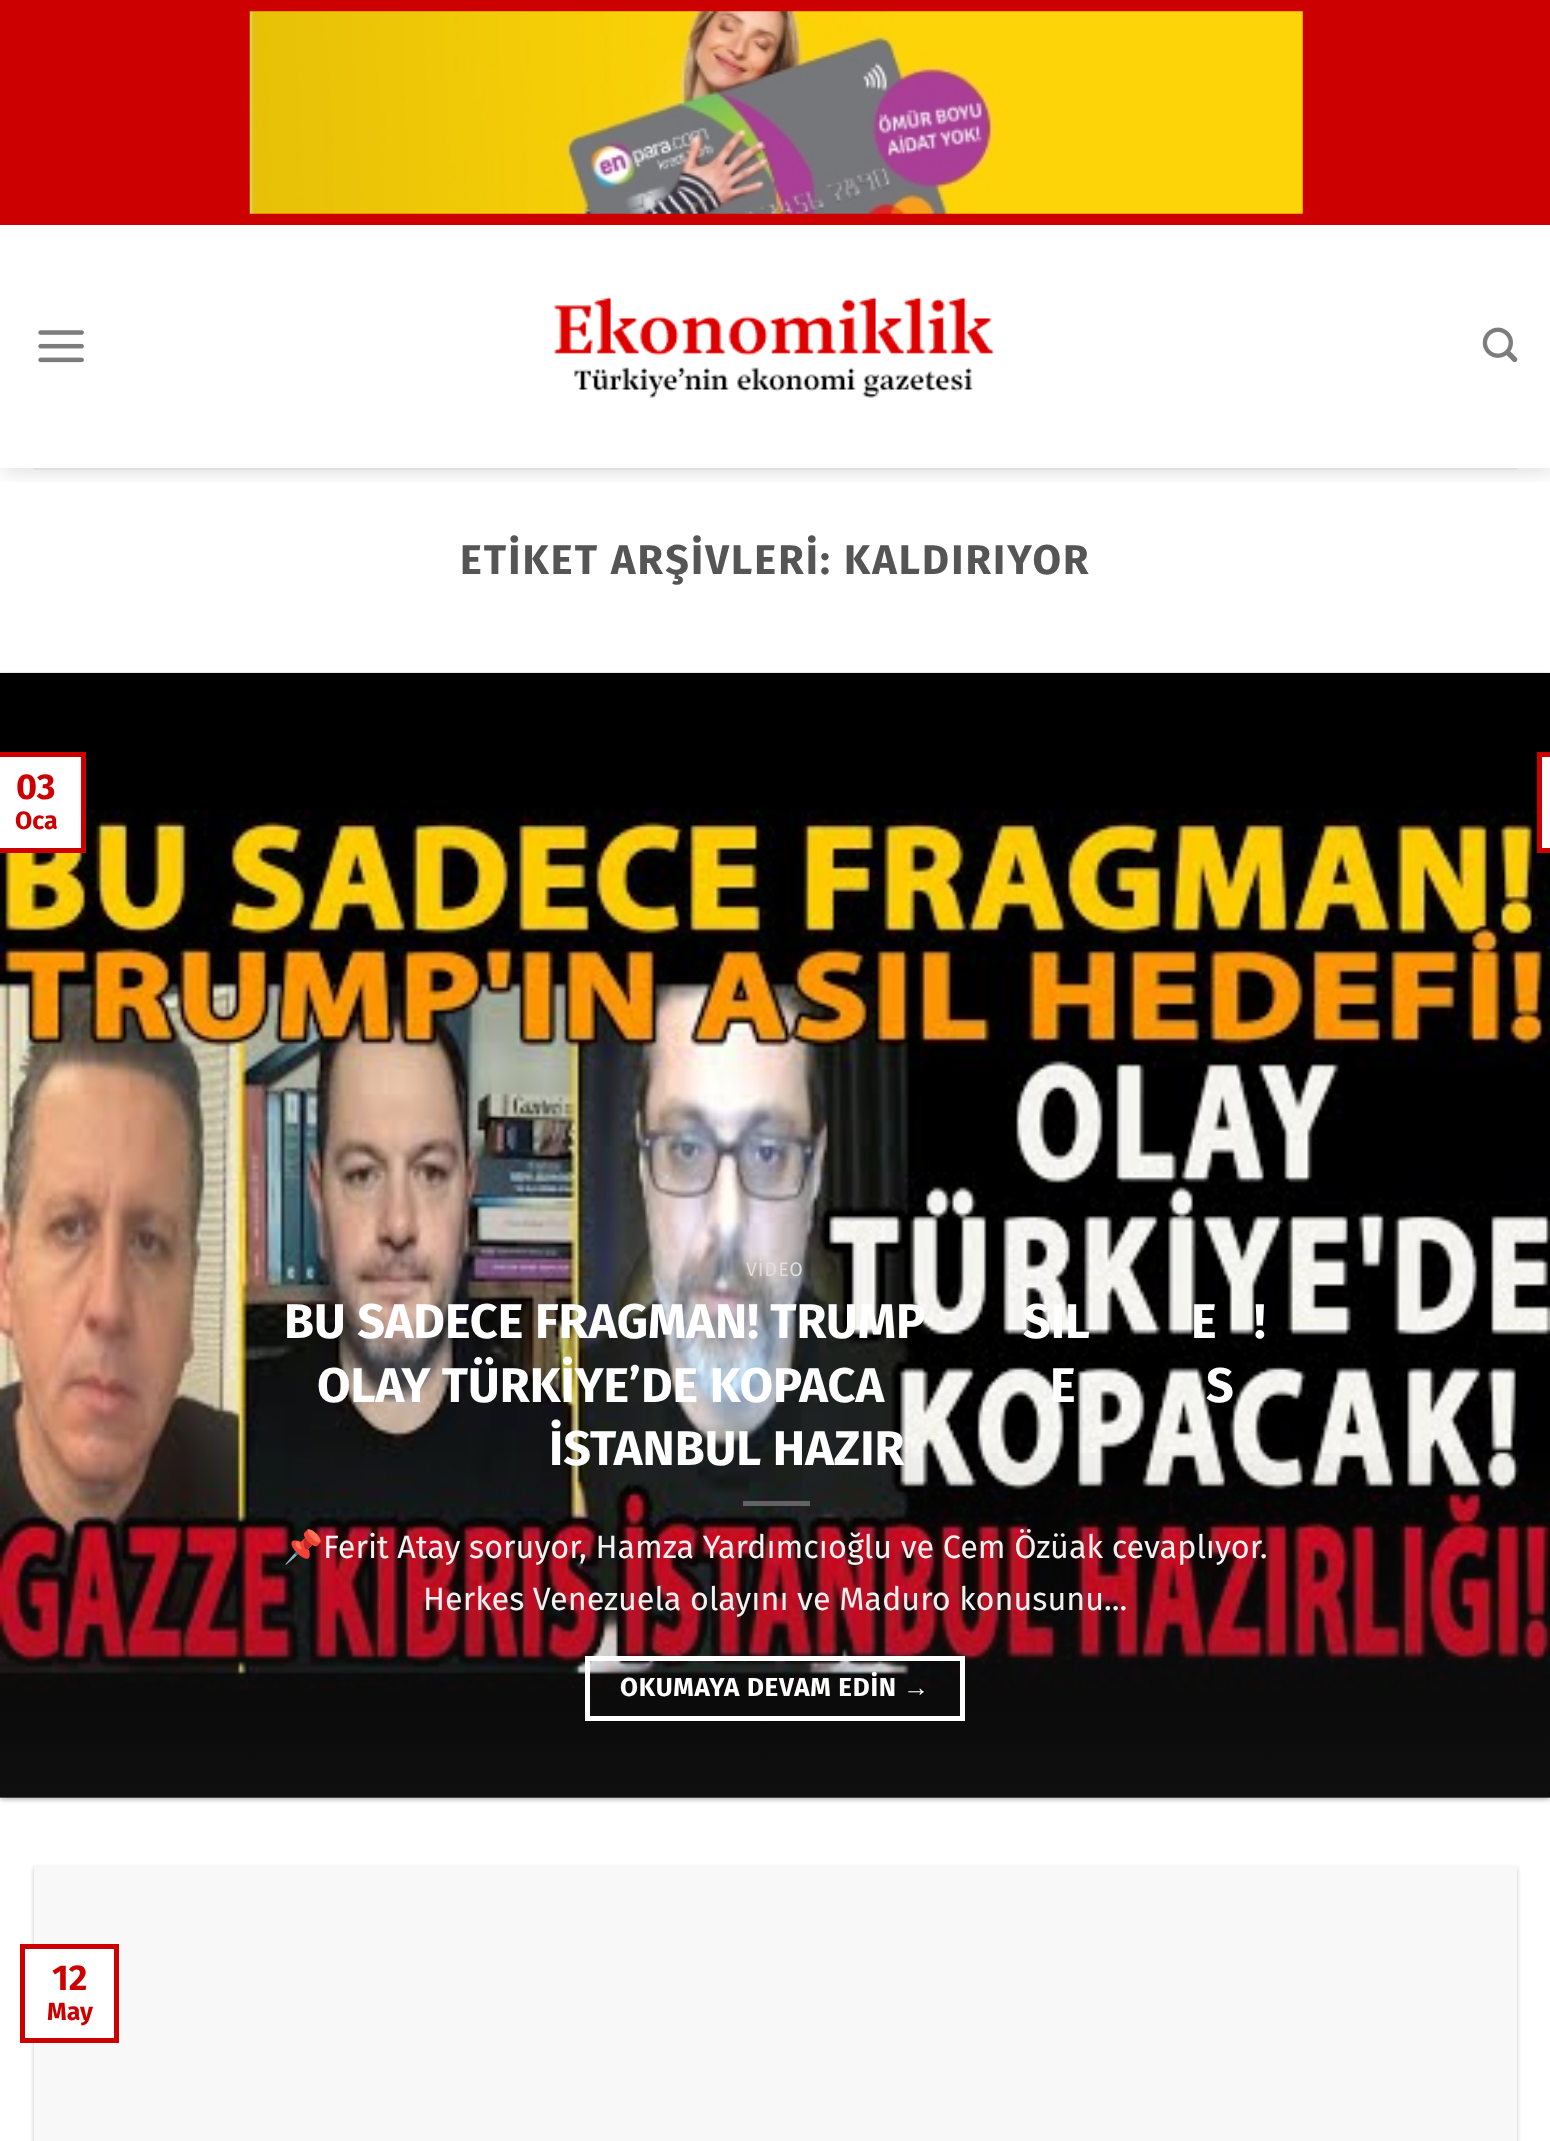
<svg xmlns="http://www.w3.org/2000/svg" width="1550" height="2141">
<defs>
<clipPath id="clip1"><rect x="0" y="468" width="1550" height="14"/></clipPath>
<linearGradient id="g1" gradientUnits="userSpaceOnUse" x1="775" y1="1798" x2="775" y2="673"><stop offset="0" stop-color="#323232" stop-opacity="0.3"/><stop offset="0.33" stop-color="#323232" stop-opacity="0"/></linearGradient>
</defs>
<rect width="100%" height="100%" fill="#fff"/>
<g clip-path="url(#clip1)">
<rect x="2" y="2" width="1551" height="468" fill="#00000026" filter="blur(11px)"/>
</g>
<rect width="1550" height="225" fill="#c00"/>
<image x="249" y="11" width="1054" height="203" href="media/1.png"/>
<image x="38" y="330" width="46" height="33" href="media/2.png"/>
<image x="554" y="296" width="441" height="102" href="media/3.png"/>
<image x="1482" y="327" width="36" height="36" href="media/4.png"/>
<rect x="34" y="468" width="1483" height="2" fill="#dfdfdf"/>
<text x="460" y="574" style="font-family:Fira Sans;font-size:41.4px;font-weight:bold;letter-spacing:2.1px;fill:#555">ETİKET ARŞİVLERİ: KALDIRIYOR</text>
<rect y="675" width="1550" height="1125" fill="#0000003d" filter="blur(2px)"/>
<rect x="5" y="680" width="1541" height="1116" fill="#0000001f" filter="blur(3.5px)"/>
<image x="0" y="672" width="1550" height="1126" href="media/5.png"/>
<rect y="1453" width="1550" height="345" fill="url(#g1)"/>
<rect x="-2.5" y="754.5" width="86" height="96" fill="#fff" stroke="#c00" stroke-width="5"/>
<text x="16" y="799" style="font-family:Fira Sans;font-size:36px;font-weight:bold;fill:#c00">03</text>
<text x="15" y="829" style="font-family:Fira Sans;font-size:25px;font-weight:bold;fill:#c00">Oca</text>
<text x="746" y="1276" style="font-family:Fira Sans;font-size:19.5px;letter-spacing:1px;fill:#e0dede">VİDEO</text>
<text x="284" y="1338" style="font-family:Fira Sans;font-size:48.6px;font-weight:bold;fill:#fff">BU SADECE FRAGMAN! TRUMP</text>
<text x="1023" y="1338" style="font-family:Fira Sans;font-size:48.6px;font-weight:bold;fill:#fff">SIL</text>
<text x="1191" y="1338" style="font-family:Fira Sans;font-size:48.6px;font-weight:bold;fill:#fff">E</text>
<text x="1254" y="1338" style="font-family:Fira Sans;font-size:48.6px;font-weight:bold;fill:#fff">!</text>
<text x="317" y="1402" style="font-family:Fira Sans;font-size:48.6px;font-weight:bold;fill:#fff">OLAY TÜRKİYE’DE KOPACA</text>
<text x="1050" y="1402" style="font-family:Fira Sans;font-size:48.6px;font-weight:bold;fill:#fff">E</text>
<text x="1206" y="1402" style="font-family:Fira Sans;font-size:48.6px;font-weight:bold;fill:#fff">S</text>
<text x="549" y="1465" style="font-family:Fira Sans;font-size:48.6px;font-weight:bold;fill:#fff">İSTANBUL HAZIR</text>
<rect x="743" y="1501" width="67" height="5" fill="#ffffff4d"/>
<text x="283" y="1558" style="font-family:Noto Color Emoji;font-size:32.4px;fill:#f1f1f1">📌</text>
<text x="323" y="1558" style="font-family:Fira Sans;font-size:32.4px;fill:#f1f1f1">Ferit Atay soruyor, Hamza Yardımcıoğlu ve Cem Özüak cevaplıyor.</text>
<text x="423" y="1610" style="font-family:Fira Sans;font-size:32.4px;fill:#f1f1f1">Herkes Venezuela olayını ve Maduro konusunu...</text>
<rect x="587.5" y="1658.5" width="375" height="60" fill="none" stroke="#fff" stroke-width="5"/>
<text x="620" y="1696" style="font-family:Fira Sans;font-size:26px;font-weight:bold;letter-spacing:0.75px;fill:#fff">OKUMAYA DEVAM EDİN</text>
<text x="903" y="1696" style="font-family:Liberation Sans;font-size:26px;font-weight:bold;letter-spacing:0.75px;fill:#fff">→</text>
<rect x="1539.5" y="754.5" width="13" height="96" fill="#fff" stroke="#c00" stroke-width="5"/>
<rect x="34" y="1868" width="1483" height="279" fill="#0000003d" filter="blur(2px)"/>
<rect x="34" y="1865" width="1483" height="276" fill="#f8f8f8"/>
<rect x="31" y="1949" width="83" height="89" fill="#fff"/>
<rect x="22.5" y="1946.5" width="94" height="94" fill="none" stroke="#c00" stroke-width="5"/>
<text x="52" y="1990" style="font-family:Fira Sans;font-size:36px;font-weight:bold;fill:#c00">12</text>
<text x="47" y="2020" style="font-family:Fira Sans;font-size:25px;font-weight:bold;fill:#c00">May</text>
</svg>
